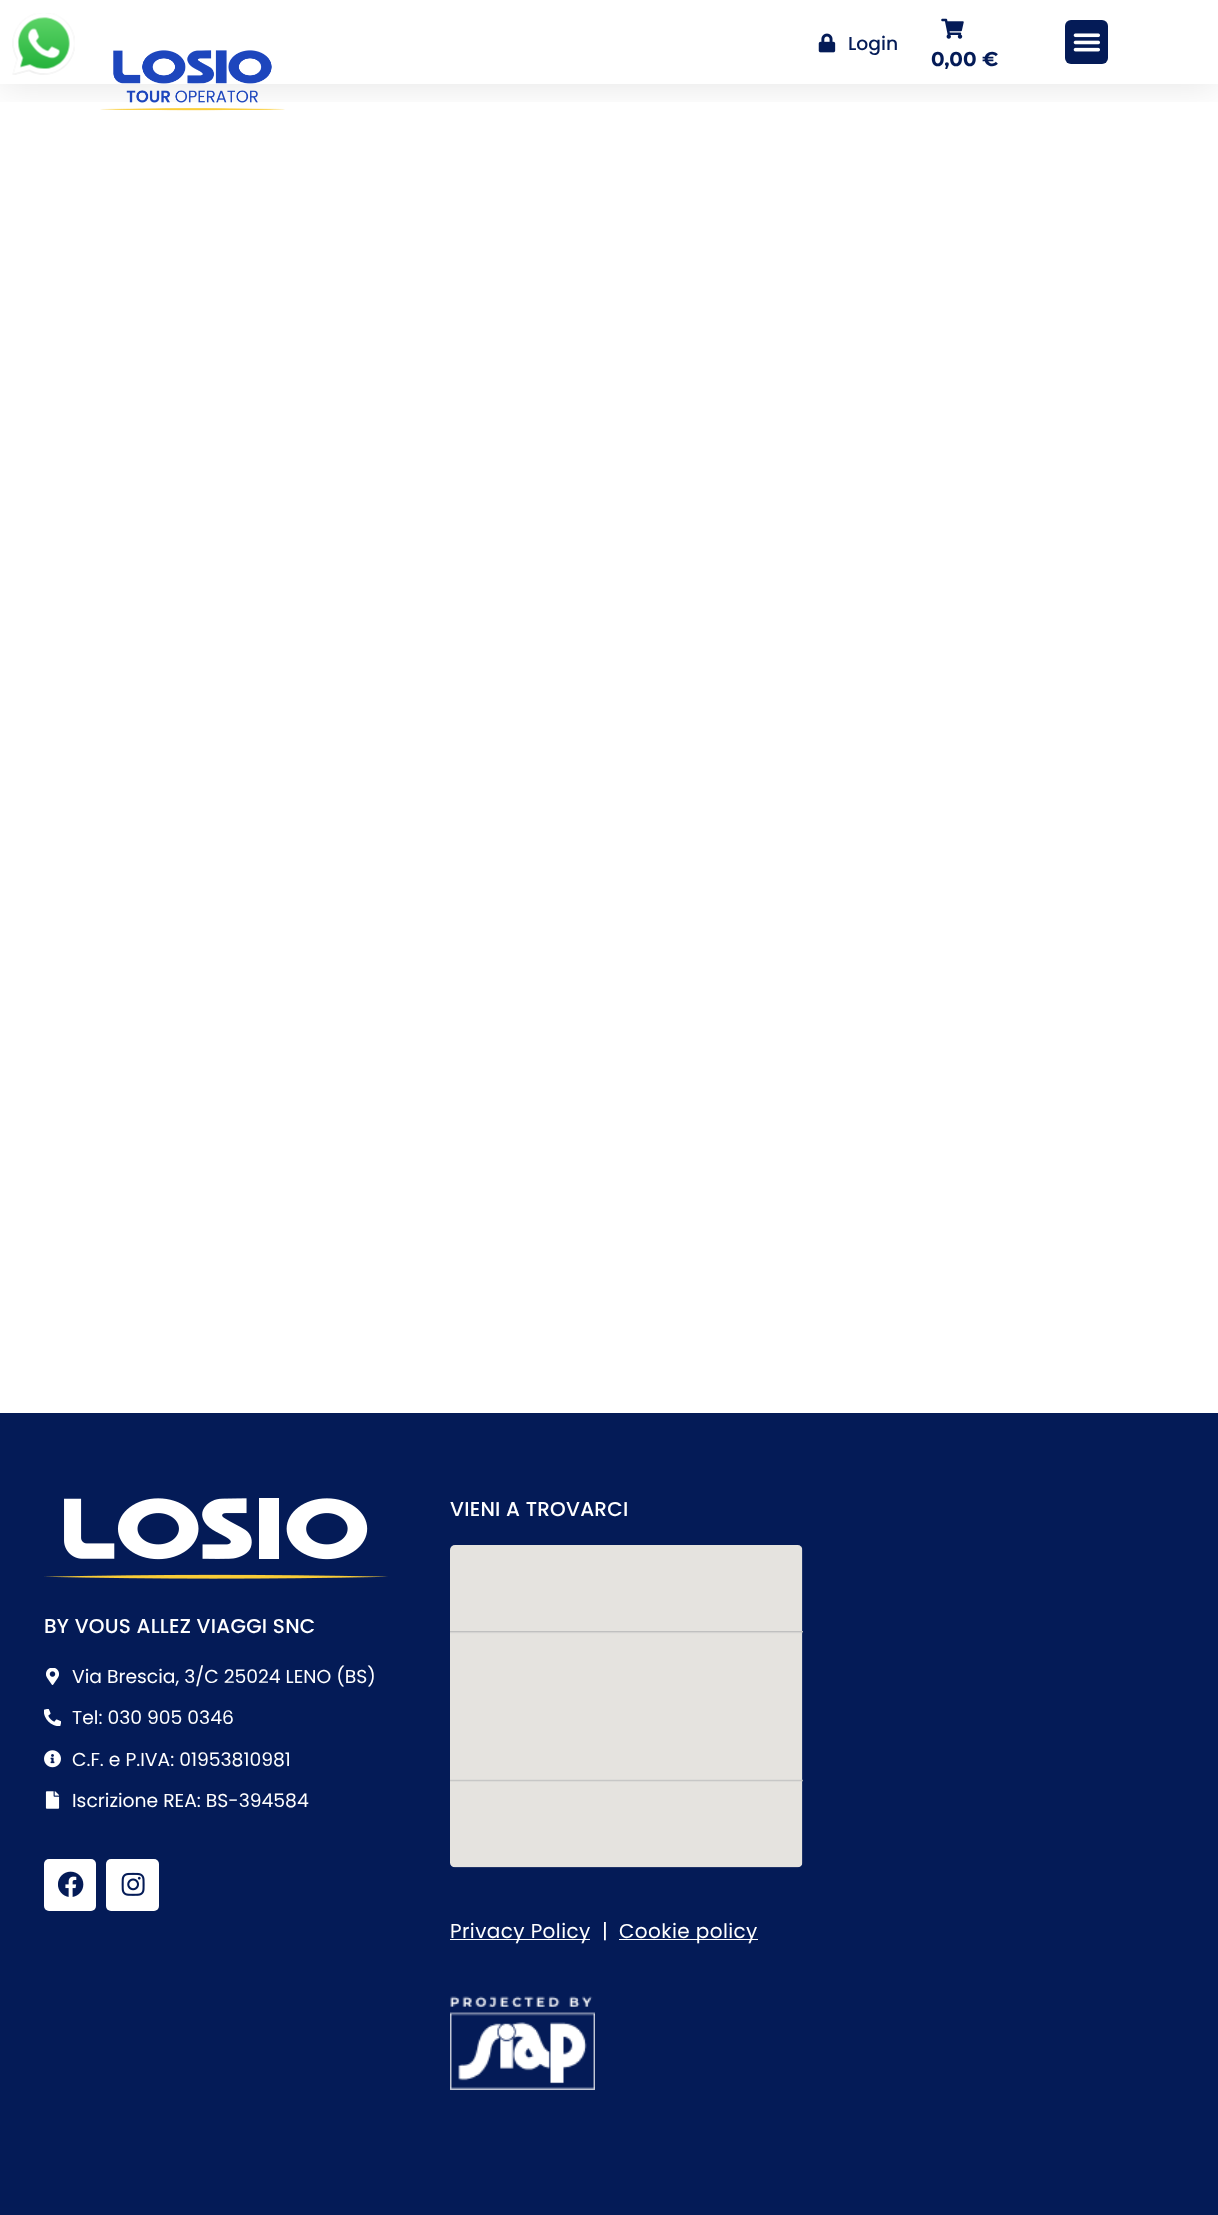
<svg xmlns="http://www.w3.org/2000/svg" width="1218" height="2215">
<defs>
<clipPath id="clip1"><rect x="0" y="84" width="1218" height="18"/></clipPath>
</defs>
<rect width="100%" height="100%" fill="#fff"/>
<g clip-path="url(#clip1)">
<rect width="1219" height="84" fill="#0000001c" filter="blur(19.5px)"/>
</g>
<image x="12" y="13" width="63" height="62" href="media/1.png"/>
<image x="818" y="33" width="18" height="20" href="media/2.png"/>
<text x="848" y="50" style="font-family:Poppins;font-size:18.75px;font-weight:500;fill:#041b57">Login</text>
<rect x="1065" y="20" width="43" height="44" rx="6" fill="#041b57"/>
<image x="1073" y="33" width="27" height="19" href="media/3.png"/>
<image x="100" y="50" width="185" height="61" href="media/4.png"/>
<image x="941" y="18" width="23" height="21" href="media/5.png"/>
<text x="931" y="66" style="font-family:Montserrat;font-size:20px;font-weight:bold;fill:#041b57">0,00 €</text>
<rect y="1413" width="1218" height="802" fill="#041b57"/>
<image x="44" y="1498" width="344" height="81" href="media/6.png"/>
<text x="44" y="1633" style="font-family:Poppins;font-size:20px;font-weight:500;letter-spacing:0.25px;fill:#fff">BY VOUS ALLEZ VIAGGI SNC</text>
<image x="46" y="1668" width="13" height="17" href="media/7.png"/>
<text x="72" y="1683" style="font-family:Poppins;font-size:18.75px;fill:#fff">Via Brescia, 3/C 25024 LENO (BS)</text>
<image x="44" y="1709" width="17" height="17" href="media/8.png"/>
<text x="72" y="1724" style="font-family:Poppins;font-size:18.75px;fill:#fff">Tel: 030 905 0346</text>
<image x="44" y="1750" width="17" height="18" href="media/9.png"/>
<text x="72" y="1766" style="font-family:Poppins;font-size:18.75px;fill:#fff">C.F. e P.IVA: 01953810981</text>
<image x="45" y="1791" width="15" height="18" href="media/10.png"/>
<text x="72" y="1807" style="font-family:Poppins;font-size:18.75px;fill:#fff">Iscrizione REA: BS-394584</text>
<rect x="44" y="1859" width="52" height="52" rx="5" fill="#fff"/>
<image x="58" y="1871" width="26" height="26" href="media/11.png"/>
<rect x="106" y="1859" width="53" height="52" rx="5" fill="#fff"/>
<image x="121" y="1872" width="24" height="24" href="media/12.png"/>
<text x="450" y="1516" style="font-family:Poppins;font-size:20px;font-weight:500;letter-spacing:0.25px;fill:#fff">VIENI A TROVARCI</text>
<image x="450" y="1545" width="353" height="323" href="media/13.png"/>
<rect x="450" y="1939" width="140" height="1" fill="#fff"/>
<text x="450" y="1938" style="font-family:Poppins;font-size:20px;letter-spacing:0.4px;fill:#fff">Privacy Policy</text>
<text x="602" y="1938" style="font-family:Poppins;font-size:20px;letter-spacing:0.4px;fill:#fff">|</text>
<rect x="619" y="1939" width="139" height="1" fill="#fff"/>
<text x="619" y="1938" style="font-family:Poppins;font-size:20px;letter-spacing:0.4px;fill:#fff">Cookie policy</text>
<image x="450" y="1996" width="145" height="94" href="media/14.png"/>
</svg>
